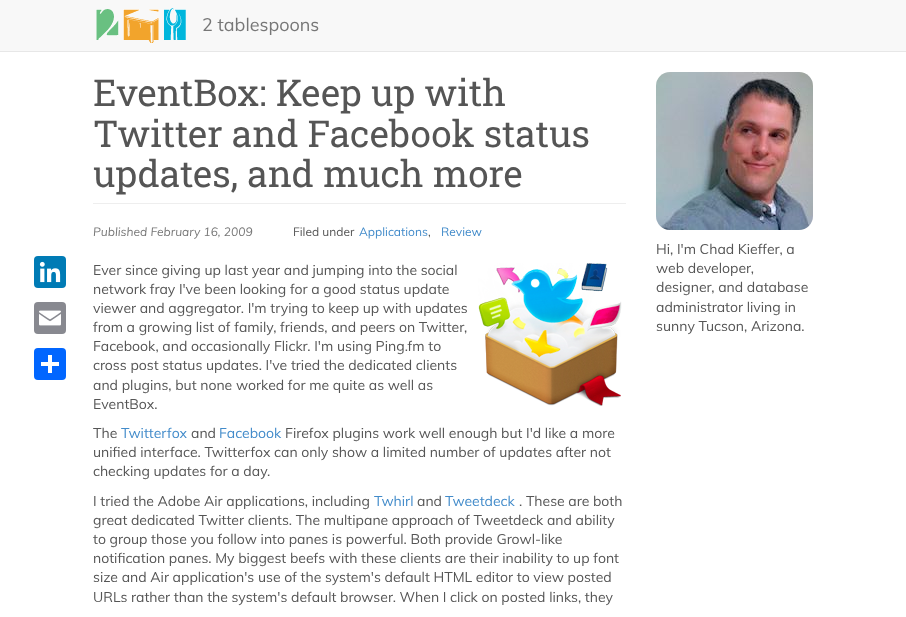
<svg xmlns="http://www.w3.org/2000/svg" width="906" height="617">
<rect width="100%" height="100%" fill="#fff"/>
<rect width="906" height="51" fill="#f8f8f8"/>
<rect y="51" width="906" height="1" fill="#e7e7e7"/>
<image x="96" y="8" width="90" height="35" href="media/1.png"/>
<text x="202" y="31" style="font-family:Muli;font-size:18px;fill:#777">2 tablespoons</text>
<rect x="93" y="203" width="533" height="1" fill="#eee"/>
<text x="93" y="106" style="font-family:Roboto Slab;font-size:37px;fill:#555">EventBox: Keep up with</text>
<text x="93" y="147" style="font-family:Roboto Slab;font-size:37px;fill:#555">Twitter and Facebook status</text>
<text x="93" y="187" style="font-family:Roboto Slab;font-size:37px;fill:#555">updates, and much more</text>
<rect x="34" y="256" width="32" height="32" rx="4" fill="#007bb5"/>
<image x="39" y="261" width="22" height="22" href="media/2.png"/>
<rect x="34" y="302" width="32" height="32" rx="4" fill="#888990"/>
<image x="39" y="310" width="22" height="16" href="media/3.png"/>
<rect x="34" y="348" width="32" height="32" rx="4" fill="#0166ff"/>
<rect x="48" y="355" width="4" height="18" fill="#fff"/>
<rect x="41" y="362" width="18" height="4" fill="#fff"/>
<text x="93" y="236" style="font-family:Muli;font-size:12px;font-style:italic;fill:#777">Published February 16, 2009</text>
<text x="293" y="236" style="font-family:Muli;font-size:12px;fill:#555">Filed under</text>
<text x="359" y="236" style="font-family:Muli;font-size:12px;fill:#428bca">Applications</text>
<text x="428" y="236" style="font-family:Muli;font-size:12px;fill:#555">,</text>
<text x="441" y="236" style="font-family:Muli;font-size:12px;fill:#428bca">Review</text>
<text x="93" y="275" style="font-family:Muli;font-size:14px;fill:#555">Ever since giving up last year and jumping into the social</text>
<image x="478" y="263" width="144" height="143" href="media/4.png"/>
<text x="93" y="294" style="font-family:Muli;font-size:14px;fill:#555">network fray I've been looking for a good status update</text>
<text x="93" y="313" style="font-family:Muli;font-size:14px;fill:#555">viewer and aggregator. I'm trying to keep up with updates</text>
<text x="93" y="332" style="font-family:Muli;font-size:14px;fill:#555">from a growing list of family, friends, and peers on Twitter,</text>
<text x="93" y="351" style="font-family:Muli;font-size:14px;fill:#555">Facebook, and occasionally Flickr. I'm using Ping.fm to</text>
<text x="93" y="370" style="font-family:Muli;font-size:14px;fill:#555">cross post status updates. I've tried the dedicated clients</text>
<text x="93" y="390" style="font-family:Muli;font-size:14px;fill:#555">and plugins, but none worked for me quite as well as</text>
<text x="93" y="409" style="font-family:Muli;font-size:14px;fill:#555">EventBox.</text>
<text x="93" y="438" style="font-family:Muli;font-size:14px;fill:#555">The</text>
<text x="121" y="438" style="font-family:Muli;font-size:14px;fill:#428bca">Twitterfox</text>
<text x="191" y="438" style="font-family:Muli;font-size:14px;fill:#555">and</text>
<text x="219" y="438" style="font-family:Muli;font-size:14px;fill:#428bca">Facebook</text>
<text x="285" y="438" style="font-family:Muli;font-size:14px;fill:#555">Firefox plugins work well enough but I'd like a more</text>
<text x="93" y="457" style="font-family:Muli;font-size:14px;fill:#555">unified interface. Twitterfox can only show a limited number of updates after not</text>
<text x="93" y="476" style="font-family:Muli;font-size:14px;fill:#555">checking updates for a day.</text>
<text x="93" y="506" style="font-family:Muli;font-size:14px;fill:#555">I tried the Adobe Air applications, including</text>
<text x="374" y="506" style="font-family:Muli;font-size:14px;fill:#428bca">Twhirl</text>
<text x="417" y="506" style="font-family:Muli;font-size:14px;fill:#555">and</text>
<text x="445" y="506" style="font-family:Muli;font-size:14px;fill:#428bca">Tweetdeck</text>
<text x="519" y="506" style="font-family:Muli;font-size:14px;fill:#555">. These are both</text>
<text x="93" y="525" style="font-family:Muli;font-size:14px;fill:#555">great dedicated Twitter clients. The multipane approach of Tweetdeck and ability</text>
<text x="93" y="544" style="font-family:Muli;font-size:14px;fill:#555">to group those you follow into panes is powerful. Both provide Growl-like</text>
<text x="93" y="563" style="font-family:Muli;font-size:14px;fill:#555">notification panes. My biggest beefs with these clients are their inability to up font</text>
<text x="93" y="582" style="font-family:Muli;font-size:14px;fill:#555">size and Air application's use of the system's default HTML editor to view posted</text>
<text x="93" y="602" style="font-family:Muli;font-size:14px;fill:#555">URLs rather than the system's default browser. When I click on posted links, they</text>
<image x="656" y="72" width="157" height="158" href="media/5.png"/>
<text x="656" y="254" style="font-family:Muli;font-size:14px;fill:#555">Hi, I'm Chad Kieffer, a</text>
<text x="656" y="273" style="font-family:Muli;font-size:14px;fill:#555">web developer,</text>
<text x="656" y="292" style="font-family:Muli;font-size:14px;fill:#555">designer, and database</text>
<text x="656" y="312" style="font-family:Muli;font-size:14px;fill:#555">administrator living in</text>
<text x="656" y="331" style="font-family:Muli;font-size:14px;fill:#555">sunny Tucson, Arizona.</text>
</svg>
